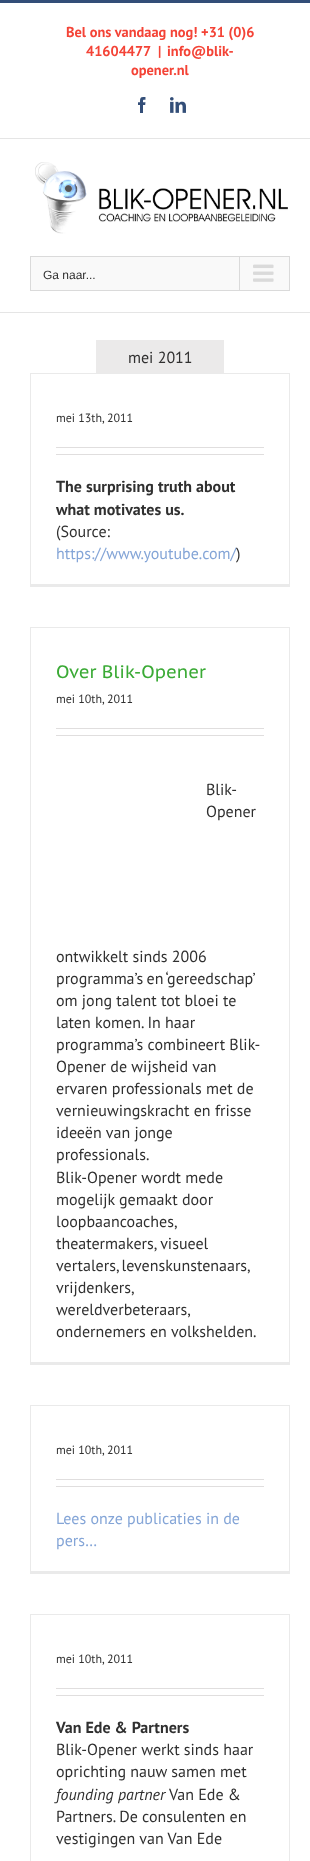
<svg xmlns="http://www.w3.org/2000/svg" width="310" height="1861">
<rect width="100%" height="100%" fill="#fff"/>
<rect width="310" height="3" fill="#334e78"/>
<rect y="138" width="310" height="1" fill="#e5e5e5"/>
<text x="66" y="37" style="font-family:PT Sans;font-size:14.4px;font-weight:bold;fill:#f44336">Bel ons vandaag nog! +31 (0)6</text>
<text x="86" y="56" style="font-family:PT Sans;font-size:14.4px;font-weight:bold;fill:#f44336">41604477</text>
<text x="158" y="56" style="font-family:PT Sans;font-size:14.4px;font-weight:bold;fill:#f44336">|</text>
<text x="167" y="56" style="font-family:PT Sans;font-size:14.4px;font-weight:bold;fill:#f44336">info@blik-</text>
<text x="131" y="75" style="font-family:PT Sans;font-size:14.4px;font-weight:bold;fill:#f44336">opener.nl</text>
<image x="138" y="97" width="8" height="16" href="media/1.png"/>
<image x="170" y="97" width="16" height="16" href="media/2.png"/>
<rect y="312" width="310" height="1" fill="#e5e5e5"/>
<image x="35" y="162" width="253" height="72" href="media/3.png"/>
<rect x="30.5" y="256.5" width="259" height="34" fill="#f9f9f9" stroke="#dadada"/>
<text x="43" y="279" style="font-family:Liberation Sans;font-size:12px;fill:#303030">Ga naar...</text>
<rect x="239" y="257" width="1" height="33" fill="#dadada"/>
<image x="253" y="264" width="21" height="18" href="media/4.png"/>
<rect x="96" y="340" width="128" height="33" fill="#ebeaea"/>
<text x="128" y="363" style="font-family:PT Sans;font-size:16px;fill:#303030">mei 2011</text>
<rect x="30" y="373" width="260" height="1" fill="#eaeaea"/>
<rect x="289" y="373" width="1" height="214" fill="#eaeaea"/>
<rect x="30" y="584" width="260" height="3" fill="#eaeaea"/>
<rect x="30" y="373" width="1" height="214" fill="#eaeaea"/>
<text x="56" y="422" style="font-family:PT Sans;font-size:12px;fill:#303030">mei 13th, 2011</text>
<rect x="56" y="447" width="208" height="1" fill="#e0dede"/>
<rect x="56" y="454" width="208" height="1" fill="#e0dede"/>
<text x="56" y="492" style="font-family:PT Sans;font-size:16px;font-weight:bold;fill:#303030">The surprising truth about</text>
<text x="56" y="515" style="font-family:PT Sans;font-size:16px;font-weight:bold;fill:#303030">what motivates us.</text>
<text x="56" y="537" style="font-family:PT Sans;font-size:16px;fill:#303030">(Source:</text>
<text x="56" y="559" style="font-family:PT Sans;font-size:16px;fill:#84a5d7">https://www.youtube.com/</text>
<text x="236" y="559" style="font-family:PT Sans;font-size:16px;fill:#303030">)</text>
<rect x="30" y="627" width="260" height="1" fill="#eaeaea"/>
<rect x="289" y="627" width="1" height="738" fill="#eaeaea"/>
<rect x="30" y="1362" width="260" height="3" fill="#eaeaea"/>
<rect x="30" y="627" width="1" height="738" fill="#eaeaea"/>
<text x="56" y="678" style="font-family:PT Sans Caption;font-size:18px;fill:#3aaa35">Over Blik-Opener</text>
<text x="56" y="703" style="font-family:PT Sans;font-size:12px;fill:#303030">mei 10th, 2011</text>
<rect x="56" y="728" width="208" height="1" fill="#e0dede"/>
<rect x="56" y="735" width="208" height="1" fill="#e0dede"/>
<text x="206" y="795" style="font-family:PT Sans;font-size:16px;fill:#303030">Blik-</text>
<text x="206" y="817" style="font-family:PT Sans;font-size:16px;fill:#303030">Opener</text>
<text x="56" y="962" style="font-family:PT Sans;font-size:16px;fill:#303030">ontwikkelt sinds 2006</text>
<text x="56" y="984" word-spacing="-1" style="font-family:PT Sans;font-size:16px;fill:#303030">programma’s en ‘gereedschap’</text>
<text x="56" y="1006" style="font-family:PT Sans;font-size:16px;fill:#303030">om jong talent tot bloei te</text>
<text x="56" y="1028" style="font-family:PT Sans;font-size:16px;fill:#303030">laten komen. In haar</text>
<text x="56" y="1050" style="font-family:PT Sans;font-size:16px;fill:#303030">programma’s combineert Blik-</text>
<text x="56" y="1072" style="font-family:PT Sans;font-size:16px;fill:#303030">Opener de wijsheid van</text>
<text x="56" y="1094" style="font-family:PT Sans;font-size:16px;fill:#303030">ervaren professionals met de</text>
<text x="56" y="1116" style="font-family:PT Sans;font-size:16px;fill:#303030">vernieuwingskracht en frisse</text>
<text x="56" y="1138" style="font-family:PT Sans;font-size:16px;fill:#303030">ideeën van jonge</text>
<text x="56" y="1160" style="font-family:PT Sans;font-size:16px;fill:#303030">professionals.</text>
<text x="56" y="1183" style="font-family:PT Sans;font-size:16px;fill:#303030">Blik-Opener wordt mede</text>
<text x="56" y="1205" style="font-family:PT Sans;font-size:16px;fill:#303030">mogelijk gemaakt door</text>
<text x="56" y="1227" style="font-family:PT Sans;font-size:16px;fill:#303030">loopbaancoaches,</text>
<text x="56" y="1249" style="font-family:PT Sans;font-size:16px;fill:#303030">theatermakers, visueel</text>
<text x="56" y="1271" word-spacing="-1" style="font-family:PT Sans;font-size:16px;fill:#303030">vertalers, levenskunstenaars,</text>
<text x="56" y="1293" style="font-family:PT Sans;font-size:16px;fill:#303030">vrijdenkers,</text>
<text x="56" y="1315" style="font-family:PT Sans;font-size:16px;fill:#303030">wereldverbeteraars,</text>
<text x="56" y="1337" style="font-family:PT Sans;font-size:16px;fill:#303030">ondernemers en volkshelden.</text>
<rect x="30" y="1405" width="260" height="1" fill="#eaeaea"/>
<rect x="289" y="1405" width="1" height="169" fill="#eaeaea"/>
<rect x="30" y="1571" width="260" height="3" fill="#eaeaea"/>
<rect x="30" y="1405" width="1" height="169" fill="#eaeaea"/>
<text x="56" y="1454" style="font-family:PT Sans;font-size:12px;fill:#303030">mei 10th, 2011</text>
<rect x="56" y="1479" width="208" height="1" fill="#e0dede"/>
<rect x="56" y="1486" width="208" height="1" fill="#e0dede"/>
<text x="56" y="1524" style="font-family:PT Sans;font-size:16px;fill:#84a5d7">Lees onze publicaties in de</text>
<text x="56" y="1546" style="font-family:PT Sans;font-size:16px;fill:#84a5d7">pers…</text>
<rect x="30" y="1614" width="260" height="1" fill="#eaeaea"/>
<rect x="289" y="1614" width="1" height="247" fill="#eaeaea"/>
<rect x="30" y="1614" width="1" height="247" fill="#eaeaea"/>
<text x="56" y="1663" style="font-family:PT Sans;font-size:12px;fill:#303030">mei 10th, 2011</text>
<rect x="56" y="1688" width="208" height="1" fill="#e0dede"/>
<rect x="56" y="1695" width="208" height="1" fill="#e0dede"/>
<text x="56" y="1733" style="font-family:PT Sans;font-size:16px;font-weight:bold;fill:#303030">Van Ede &amp; Partners</text>
<text x="56" y="1755" style="font-family:PT Sans;font-size:16px;fill:#303030">Blik-Opener werkt sinds haar</text>
<text x="56" y="1777" style="font-family:PT Sans;font-size:16px;fill:#303030">oprichting nauw samen met</text>
<text x="56" y="1800" style="font-family:PT Sans;font-size:16px;font-style:italic;fill:#303030">founding partner</text>
<text x="169" y="1800" style="font-family:PT Sans;font-size:16px;fill:#303030">Van Ede &amp;</text>
<text x="56" y="1822" style="font-family:PT Sans;font-size:16px;fill:#303030">Partners. De consulenten en</text>
<text x="56" y="1844" style="font-family:PT Sans;font-size:16px;fill:#303030">vestigingen van Van Ede</text>
</svg>
